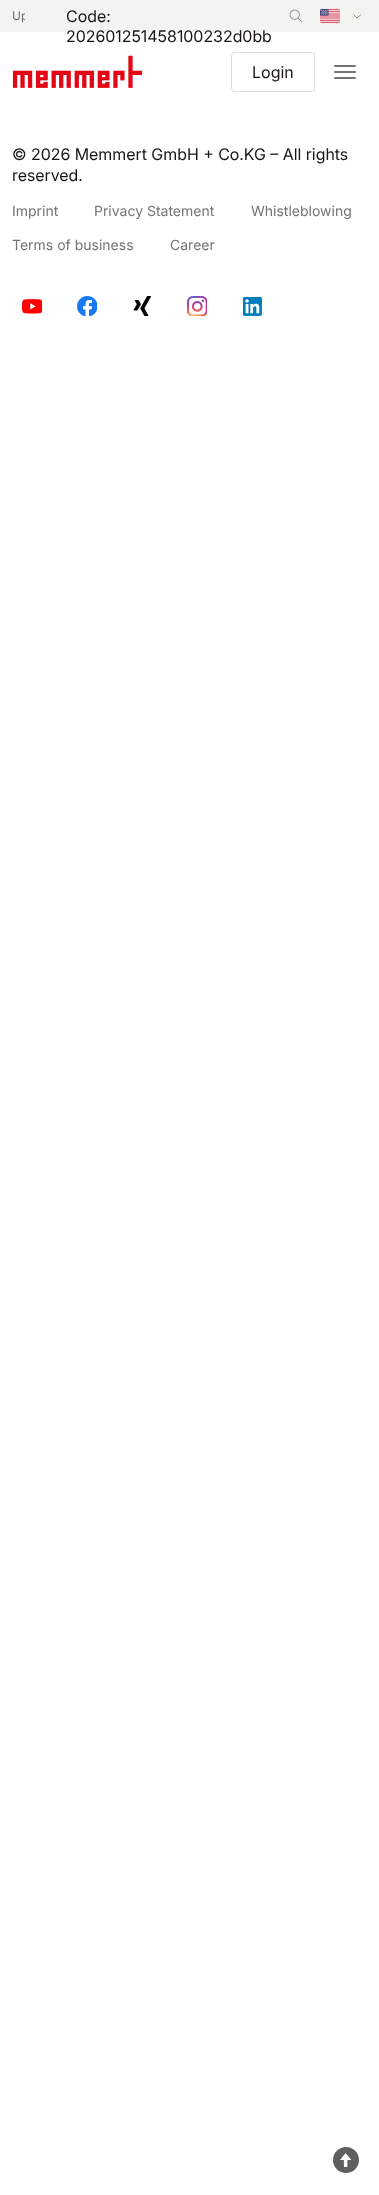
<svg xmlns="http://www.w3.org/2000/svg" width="379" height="2195">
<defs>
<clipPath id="clip1"><rect x="12" y="8" width="13" height="16"/></clipPath>
</defs>
<rect width="100%" height="100%" fill="#fff"/>
<rect width="379" height="32" fill="#f3f3f1"/>
<g clip-path="url(#clip1)">
<text x="12" y="20" style="font-family:'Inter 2';font-size:12px;fill:#706e6d">Up</text>
</g>
<text x="66" y="22" style="font-family:Inter;font-size:16px;fill:#191515">Code:</text>
<text x="66" y="42" style="font-family:Inter;font-size:16px;fill:#191515">202601251458100232d0bb</text>
<image x="289" y="9" width="14" height="14" href="media/1.png"/>
<image x="320" y="8" width="20" height="16" href="media/2.png"/>
<path d="M353.5 14.5l3.5 3.5l4-3.5" fill="none" stroke="#6a717f" stroke-width="0.8"/>
<image x="12" y="55" width="131" height="33" href="media/3.png"/>
<rect x="231.5" y="52.5" width="83" height="39" rx="3.5" fill="none" stroke="#dddcdc"/>
<text x="252" y="78" style="font-family:'Inter 2';font-size:16px;fill:#191515">Login</text>
<rect x="334" y="65" width="22" height="2" rx="1" fill="#757373"/>
<rect x="334" y="71" width="22" height="2" rx="1" fill="#757373"/>
<rect x="334" y="77" width="22" height="2" rx="1" fill="#757373"/>
<text x="12" y="160" style="font-family:Inter;font-size:16px;fill:#191515">© 2026 Memmert GmbH + Co.KG – All rights</text>
<text x="12" y="181" style="font-family:Inter;font-size:16px;fill:#191515">reserved.</text>
<text x="12" y="216" style="font-family:'Inter 2';font-size:14px;fill:#757373">Imprint</text>
<text x="94" y="216" style="font-family:'Inter 2';font-size:14px;fill:#757373">Privacy Statement</text>
<text x="251" y="216" style="font-family:'Inter 2';font-size:14px;fill:#757373">Whistleblowing</text>
<text x="12" y="250" style="font-family:'Inter 2';font-size:14px;fill:#757373">Terms of business</text>
<text x="170" y="250" style="font-family:'Inter 2';font-size:14px;fill:#757373">Career</text>
<image x="22" y="299" width="20" height="15" href="media/4.png"/>
<image x="77" y="296" width="20" height="20" href="media/5.png"/>
<image x="133" y="296" width="18" height="20" href="media/6.png"/>
<image x="187" y="296" width="20" height="20" href="media/7.png"/>
<image x="243" y="297" width="19" height="19" href="media/8.png"/>
<circle cx="346" cy="2160" r="13" fill="#5f5f5f"/>
<image x="340" y="2153" width="11" height="14" href="media/9.png"/>
</svg>
